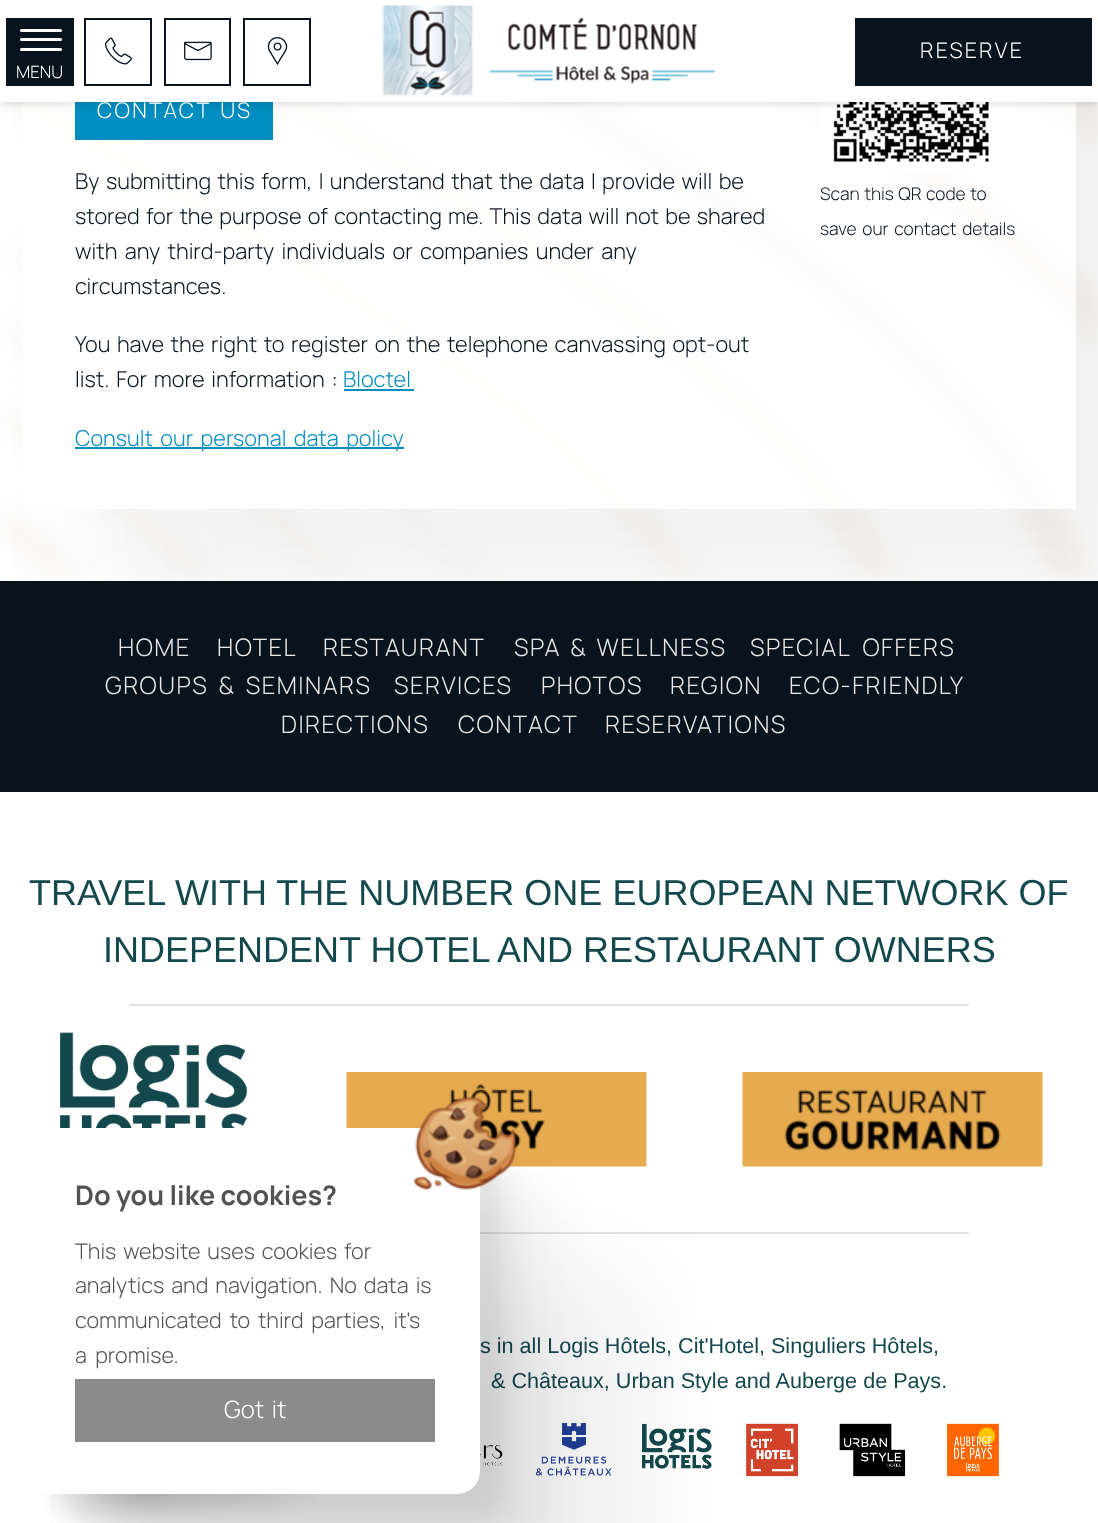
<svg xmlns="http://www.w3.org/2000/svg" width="1098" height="1523">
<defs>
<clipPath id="clip1"><rect x="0" y="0" width="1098" height="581"/></clipPath>
<clipPath id="clip2"><path d="M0 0h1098v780h-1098zm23-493h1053v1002h-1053z" clip-rule="evenodd"/></clipPath>
</defs>
<rect width="100%" height="100%" fill="#fff"/>
<image x="0" y="102" width="1098" height="478" href="media/5.png"/>
<rect y="581" width="1098" height="211" fill="#09131e"/>
<g clip-path="url(#clip1)">
<g clip-path="url(#clip2)">
<rect x="113" y="-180" width="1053" height="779" fill="#0000000d" filter="blur(60px)"/>
</g>
</g>
<rect x="23" y="102" width="1053" height="407" fill="#ffffffb3"/>
<rect x="75" y="102" width="198" height="38" fill="#008dbf"/>
<image x="821" y="102" width="179" height="71" href="media/6.png"/>
<rect width="1098" height="102" fill="#00000033" filter="blur(4px)"/>
<rect width="1098" height="102" fill="#fff"/>
<rect x="85" y="19" width="66" height="66" fill="none" stroke="#09131e" stroke-width="2"/>
<image x="105" y="37" width="27" height="28" href="media/1.png"/>
<rect x="165" y="19" width="65" height="66" fill="none" stroke="#09131e" stroke-width="2"/>
<image x="184" y="41" width="28" height="20" href="media/2.png"/>
<rect x="244" y="19" width="66" height="66" fill="none" stroke="#09131e" stroke-width="2"/>
<image x="267" y="37" width="21" height="29" href="media/3.png"/>
<image x="382" y="5" width="334" height="91" href="media/4.png"/>
<rect x="855" y="18" width="237" height="68" fill="#09131e"/>
<text x="920" y="58" style="font-family:Manrope;font-size:21.6px;font-weight:300;letter-spacing:2.25px;fill:#fff">RESERVE</text>
<rect x="6" y="18" width="68" height="68" fill="#09131e"/>
<rect x="20" y="48" width="42" height="3" rx="1.5" fill="#fff"/>
<rect x="20" y="29" width="42" height="3" rx="1.5" fill="#fff"/>
<rect x="20" y="38" width="42" height="3" rx="1.5" fill="#fff"/>
<text x="16" y="78" style="font-family:Manrope;font-size:17px;font-weight:300;fill:#fff">MENU</text>
<text x="97" y="118" word-spacing="3" style="font-family:Manrope;font-size:21.6px;font-weight:300;letter-spacing:2.25px;fill:#fff">CONTACT US</text>
<text x="75" y="189" word-spacing="2.1" style="font-family:Manrope;font-size:21.75px;font-weight:300;fill:#09131e">By submitting this form, I understand that the data I provide will be</text>
<text x="75" y="224" word-spacing="1.8" style="font-family:Manrope;font-size:21.75px;font-weight:300;fill:#09131e">stored for the purpose of contacting me. This data will not be shared</text>
<text x="75" y="259" word-spacing="3" style="font-family:Manrope;font-size:21.75px;font-weight:300;fill:#09131e">with any third-party individuals or companies under any</text>
<text x="75" y="294" style="font-family:Manrope;font-size:21.75px;font-weight:300;fill:#09131e">circumstances.</text>
<text x="75" y="352" word-spacing="2.25" style="font-family:Manrope;font-size:21.75px;font-weight:300;fill:#09131e">You have the right to register on the telephone canvassing opt-out</text>
<text x="75" y="387" word-spacing="2.5" style="font-family:Manrope;font-size:21.75px;font-weight:300;fill:#09131e">list. For more information :</text>
<text x="343" y="387" style="font-family:Manrope;font-size:21.75px;font-weight:300;fill:#008dbf">Bloctel</text>
<rect x="344" y="389" width="70" height="2" fill="#008dbf"/>
<rect x="75" y="447" width="329" height="2" fill="#008dbf"/>
<text x="75" y="446" word-spacing="3" style="font-family:Manrope;font-size:21.75px;font-weight:300;fill:#008dbf">Consult our personal data policy</text>
<text x="820" y="200" word-spacing="1" style="font-family:Manrope;font-size:17.4px;font-weight:300;fill:#09131e">Scan this QR code to</text>
<text x="820" y="235" word-spacing="2.25" style="font-family:Manrope;font-size:17.4px;font-weight:300;fill:#09131e">save our contact details</text>
<text x="118" y="656" style="font-family:Manrope;font-size:24px;font-weight:300;letter-spacing:1.5px;fill:#e6e6e6">HOME</text>
<text x="217" y="656" style="font-family:Manrope;font-size:24px;font-weight:300;letter-spacing:1.5px;fill:#e6e6e6">HOTEL</text>
<text x="323" y="656" style="font-family:Manrope;font-size:24px;font-weight:300;letter-spacing:1.5px;fill:#e6e6e6">RESTAURANT</text>
<text x="514" y="656" word-spacing="3" style="font-family:Manrope;font-size:24px;font-weight:300;letter-spacing:1.5px;fill:#e6e6e6">SPA &amp; WELLNESS</text>
<text x="750" y="656" word-spacing="6" style="font-family:Manrope;font-size:24px;font-weight:300;letter-spacing:1.5px;fill:#e6e6e6">SPECIAL OFFERS</text>
<text x="105" y="694" word-spacing="4" style="font-family:Manrope;font-size:24px;font-weight:300;letter-spacing:1.5px;fill:#e6e6e6">GROUPS &amp; SEMINARS</text>
<text x="394" y="694" style="font-family:Manrope;font-size:24px;font-weight:300;letter-spacing:1.5px;fill:#e6e6e6">SERVICES</text>
<text x="541" y="694" style="font-family:Manrope;font-size:24px;font-weight:300;letter-spacing:1.5px;fill:#e6e6e6">PHOTOS</text>
<text x="670" y="694" style="font-family:Manrope;font-size:24px;font-weight:300;letter-spacing:1.5px;fill:#e6e6e6">REGION</text>
<text x="789" y="694" style="font-family:Manrope;font-size:24px;font-weight:300;letter-spacing:1.5px;fill:#e6e6e6">ECO-FRIENDLY</text>
<text x="281" y="733" style="font-family:Manrope;font-size:24px;font-weight:300;letter-spacing:1.5px;fill:#e6e6e6">DIRECTIONS</text>
<text x="458" y="733" style="font-family:Manrope;font-size:24px;font-weight:300;letter-spacing:1.5px;fill:#e6e6e6">CONTACT</text>
<text x="605" y="733" style="font-family:Manrope;font-size:24px;font-weight:300;letter-spacing:1.5px;fill:#e6e6e6">RESERVATIONS</text>
<text x="29" y="905" style="font-family:Liberation Sans;font-size:36px;fill:#13484d">TRAVEL WITH THE NUMBER ONE EUROPEAN NETWORK OF</text>
<text x="103" y="962" style="font-family:Liberation Sans;font-size:36px;fill:#13484d">INDEPENDENT HOTEL AND RESTAURANT OWNERS</text>
<rect x="129" y="1004" width="840" height="2" fill="#e3e3e3"/>
<image x="60" y="1032" width="188" height="96" href="media/7.png"/>
<image x="346" y="1072" width="301" height="95" href="media/8.png"/>
<image x="742" y="1072" width="301" height="95" href="media/9.png"/>
<rect x="480" y="1232" width="489" height="2" fill="#e3e3e3"/>
<text x="480" y="1353" style="font-family:Liberation Sans;font-size:21.6px;fill:#13484d">s in all Logis Hôtels, Cit'Hotel, Singuliers Hôtels,</text>
<text x="491" y="1388" style="font-family:Liberation Sans;font-size:21.6px;fill:#13484d">&amp; Châteaux, Urban Style and Auberge de Pays.</text>
<image x="479" y="1423" width="520" height="54" href="media/10.png"/>
<image x="50" y="1493" width="268" height="30" href="media/11.png"/>
<rect x="180" y="1278" width="450" height="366" rx="23" fill="#00000012" filter="blur(60px)"/>
<rect x="93" y="1191" width="450" height="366" rx="23" fill="#0000000d" filter="blur(25px)"/>
<rect x="63" y="1161" width="450" height="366" rx="23" fill="#0000000a" filter="blur(13.5px)"/>
<rect x="50" y="1148" width="450" height="366" rx="23" fill="#0000000a" filter="blur(7.5px)"/>
<rect x="30" y="1128" width="450" height="366" rx="23" fill="#fff"/>
<image x="413" y="1096" width="104" height="94" href="media/12.png"/>
<text x="75" y="1205" style="font-family:Manrope;font-size:27px;font-weight:bold;fill:#525252">Do you like cookies?</text>
<text x="75" y="1259" word-spacing="2.5" style="font-family:Manrope;font-size:21.6px;font-weight:300;fill:#525252">This website uses cookies for</text>
<text x="75" y="1293" word-spacing="2.75" style="font-family:Manrope;font-size:21.6px;font-weight:300;fill:#525252">analytics and navigation. No data is</text>
<text x="75" y="1328" word-spacing="3.5" style="font-family:Manrope;font-size:21.6px;font-weight:300;fill:#525252">communicated to third parties, it's</text>
<text x="75" y="1363" word-spacing="4" style="font-family:Manrope;font-size:21.6px;font-weight:300;fill:#525252">a promise.</text>
<rect x="75" y="1379" width="360" height="63" fill="#8b8b8b"/>
<text x="224" y="1418" word-spacing="3" style="font-family:Manrope;font-size:24px;font-weight:300;fill:#fff">Got it</text>
</svg>
